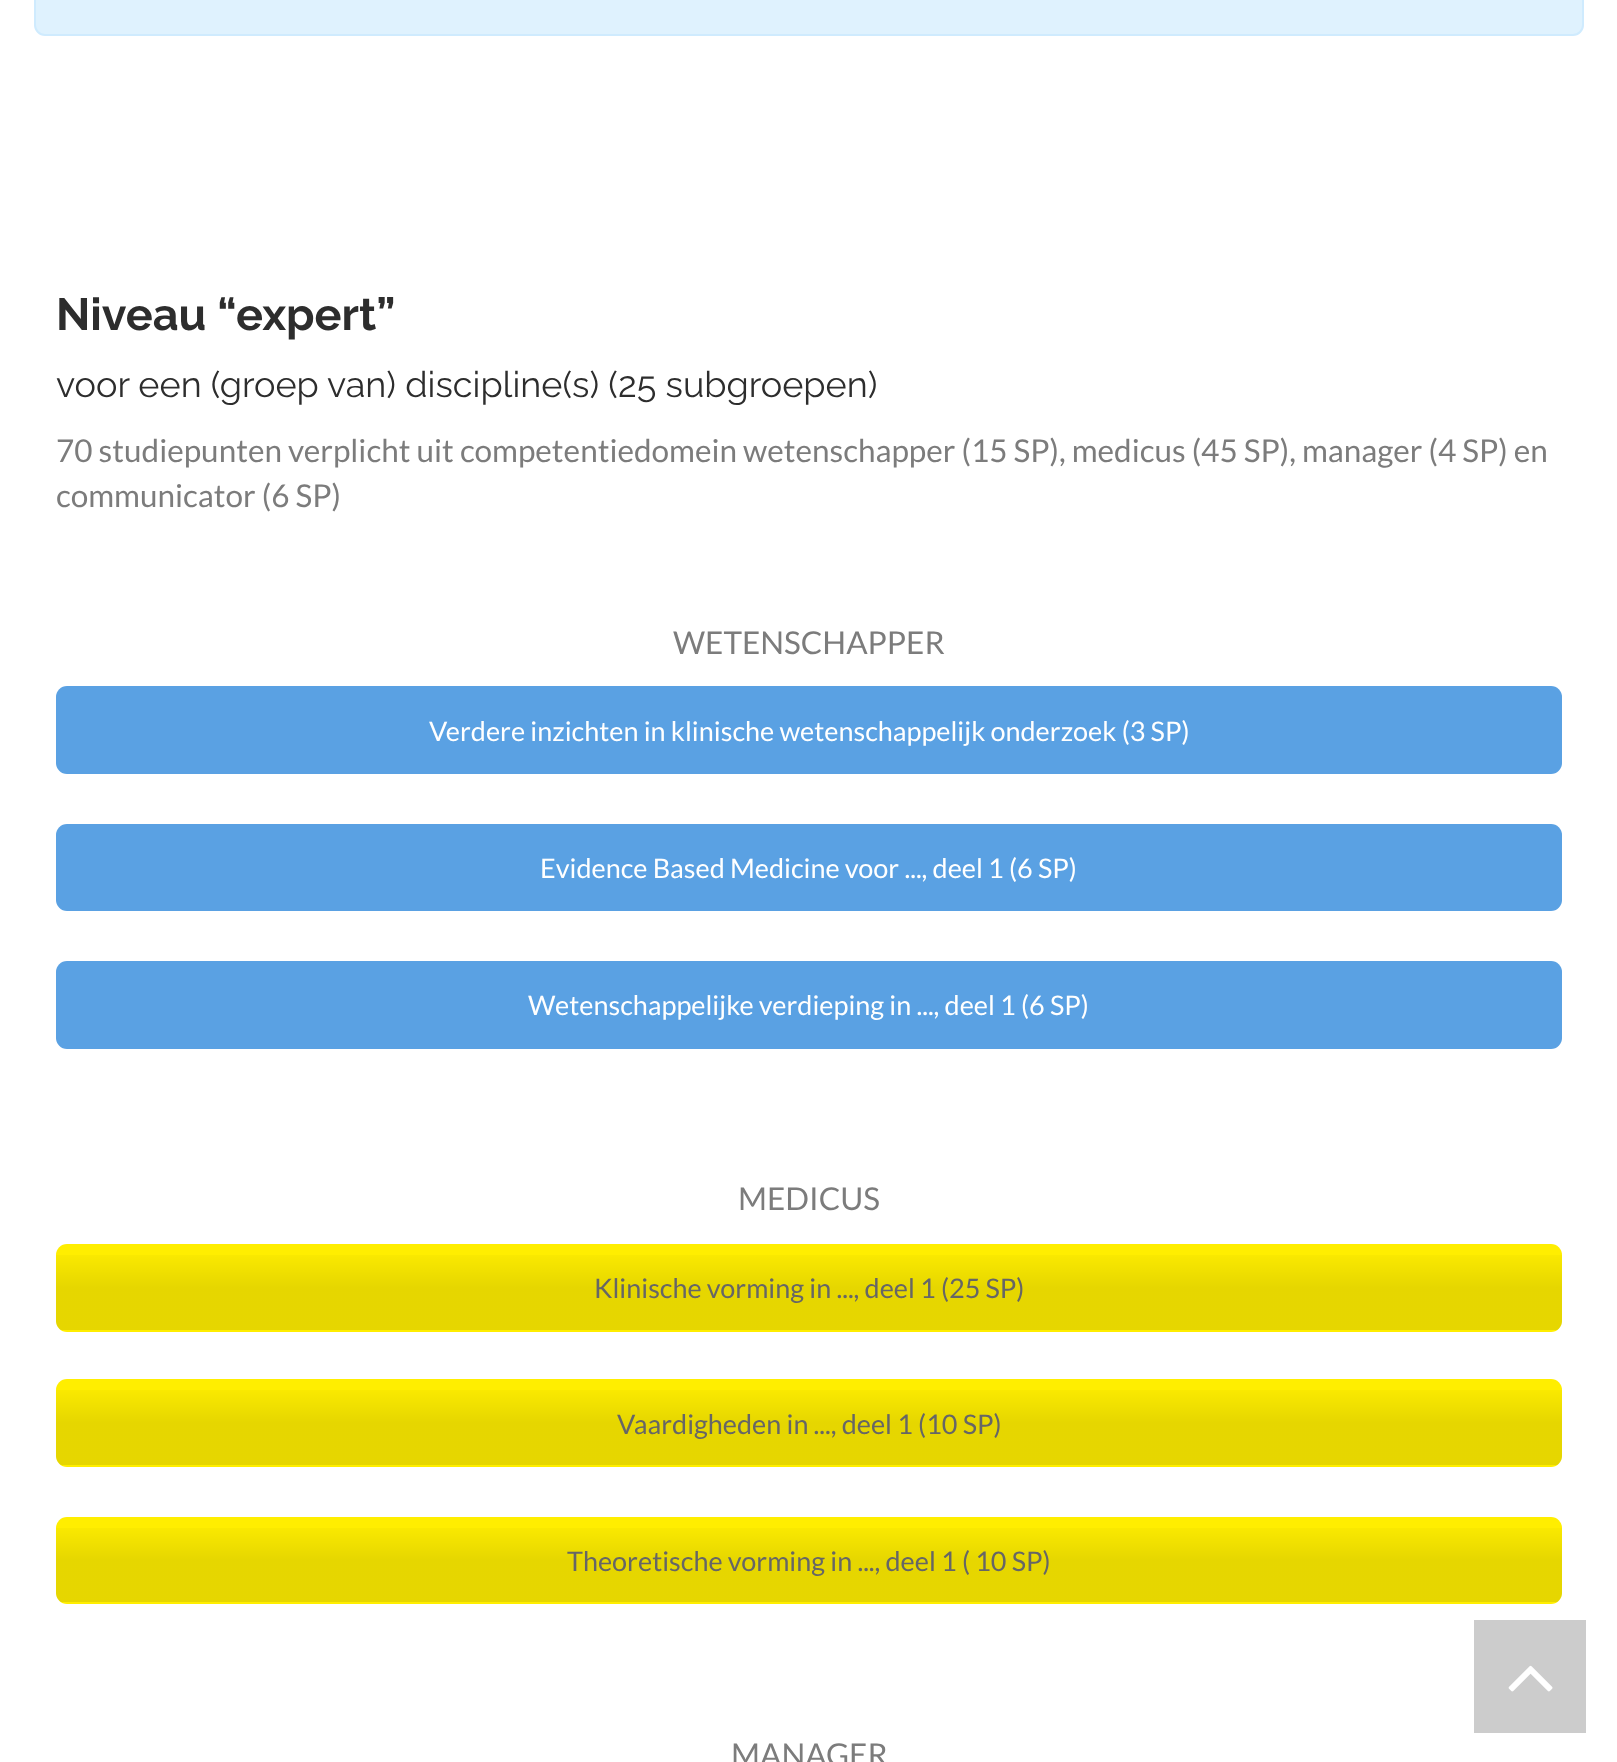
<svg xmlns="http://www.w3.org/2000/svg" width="1617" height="1762">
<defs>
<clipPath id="clip1"><rect x="56" y="1244" width="1506" height="88" rx="11"/></clipPath>
<linearGradient id="g1" gradientUnits="userSpaceOnUse" x1="1559" y1="1246" x2="1559" y2="1330"><stop offset="0" stop-color="#000" stop-opacity="0"/><stop offset="0.5" stop-color="#000" stop-opacity="0.1"/><stop offset="1" stop-color="#000" stop-opacity="0.1"/></linearGradient>
<clipPath id="clip2"><rect x="56" y="1379" width="1506" height="88" rx="11"/></clipPath>
<linearGradient id="g2" gradientUnits="userSpaceOnUse" x1="1559" y1="1381" x2="1559" y2="1465"><stop offset="0" stop-color="#000" stop-opacity="0"/><stop offset="0.5" stop-color="#000" stop-opacity="0.1"/><stop offset="1" stop-color="#000" stop-opacity="0.1"/></linearGradient>
<clipPath id="clip3"><rect x="56" y="1517" width="1506" height="87" rx="11"/></clipPath>
<linearGradient id="g3" gradientUnits="userSpaceOnUse" x1="1559" y1="1519" x2="1559" y2="1602"><stop offset="0" stop-color="#000" stop-opacity="0"/><stop offset="0.5" stop-color="#000" stop-opacity="0.1"/><stop offset="1" stop-color="#000" stop-opacity="0.1"/></linearGradient>
</defs>
<rect width="100%" height="100%" fill="#fff"/>
<rect x="35" y="-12" width="1548" height="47" rx="10" fill="#dff2fe" stroke="#cfebfe" stroke-width="2"/>
<text x="56" y="330" style="font-family:Raleway;font-size:45px;font-weight:bold;fill:#2d2d2d">Niveau “expert”</text>
<text x="56" y="397" style="font-family:Raleway;font-size:36px;fill:#2d2d2d">voor een (groep van) discipline(s) (25 subgroepen)</text>
<text x="56" y="462" style="font-family:Lato;font-size:31.5px;fill:#7c7c7c">70 studiepunten verplicht uit competentiedomein wetenschapper (15 SP), medicus (45 SP), manager (4 SP) en</text>
<text x="56" y="507" style="font-family:Lato;font-size:31.5px;fill:#7c7c7c">communicator (6 SP)</text>
<text x="673" y="654" style="font-family:Lato;font-size:31.5px;fill:#7c7c7c">WETENSCHAPPER</text>
<rect x="56" y="686" width="1506" height="88" rx="11" fill="#5aa1e3"/>
<text x="429" y="741" style="font-family:Lato;font-size:27px;fill:#fff">Verdere inzichten in klinische wetenschappelijk onderzoek (3 SP)</text>
<rect x="56" y="824" width="1506" height="87" rx="11" fill="#5aa1e3"/>
<text x="540" y="878" style="font-family:Lato;font-size:27px;fill:#fff">Evidence Based Medicine voor ..., deel 1 (6 SP)</text>
<rect x="56" y="961" width="1506" height="88" rx="11" fill="#5aa1e3"/>
<text x="528" y="1015" style="font-family:Lato;font-size:27px;fill:#fff">Wetenschappelijke verdieping in ..., deel 1 (6 SP)</text>
<text x="738" y="1210" style="font-family:Lato;font-size:31.5px;fill:#7c7c7c">MEDICUS</text>
<rect x="56" y="1244" width="1506" height="88" rx="11" fill="#fe0"/>
<g clip-path="url(#clip1)">
<rect x="56" y="1255" width="1506" height="75" fill="url(#g1)"/>
</g>
<text x="594" y="1298" style="font-family:Lato;font-size:27px;fill:#666">Klinische vorming in ..., deel 1 (25 SP)</text>
<rect x="56" y="1379" width="1506" height="88" rx="11" fill="#fe0"/>
<g clip-path="url(#clip2)">
<rect x="56" y="1390" width="1506" height="75" fill="url(#g2)"/>
</g>
<text x="617" y="1434" style="font-family:Lato;font-size:27px;fill:#666">Vaardigheden in ..., deel 1 (10 SP)</text>
<rect x="56" y="1517" width="1506" height="87" rx="11" fill="#fe0"/>
<g clip-path="url(#clip3)">
<rect x="56" y="1528" width="1506" height="74" fill="url(#g3)"/>
</g>
<text x="567" y="1571" style="font-family:Lato;font-size:27px;fill:#666">Theoretische vorming in ..., deel 1 ( 10 SP)</text>
<text x="731" y="1766" style="font-family:Lato;font-size:31.5px;fill:#7c7c7c">MANAGER</text>
<rect x="1474" y="1620" width="112" height="113" fill="#ccc"/>
<image x="1508" y="1665" width="45" height="27" href="media/1.png"/>
</svg>
